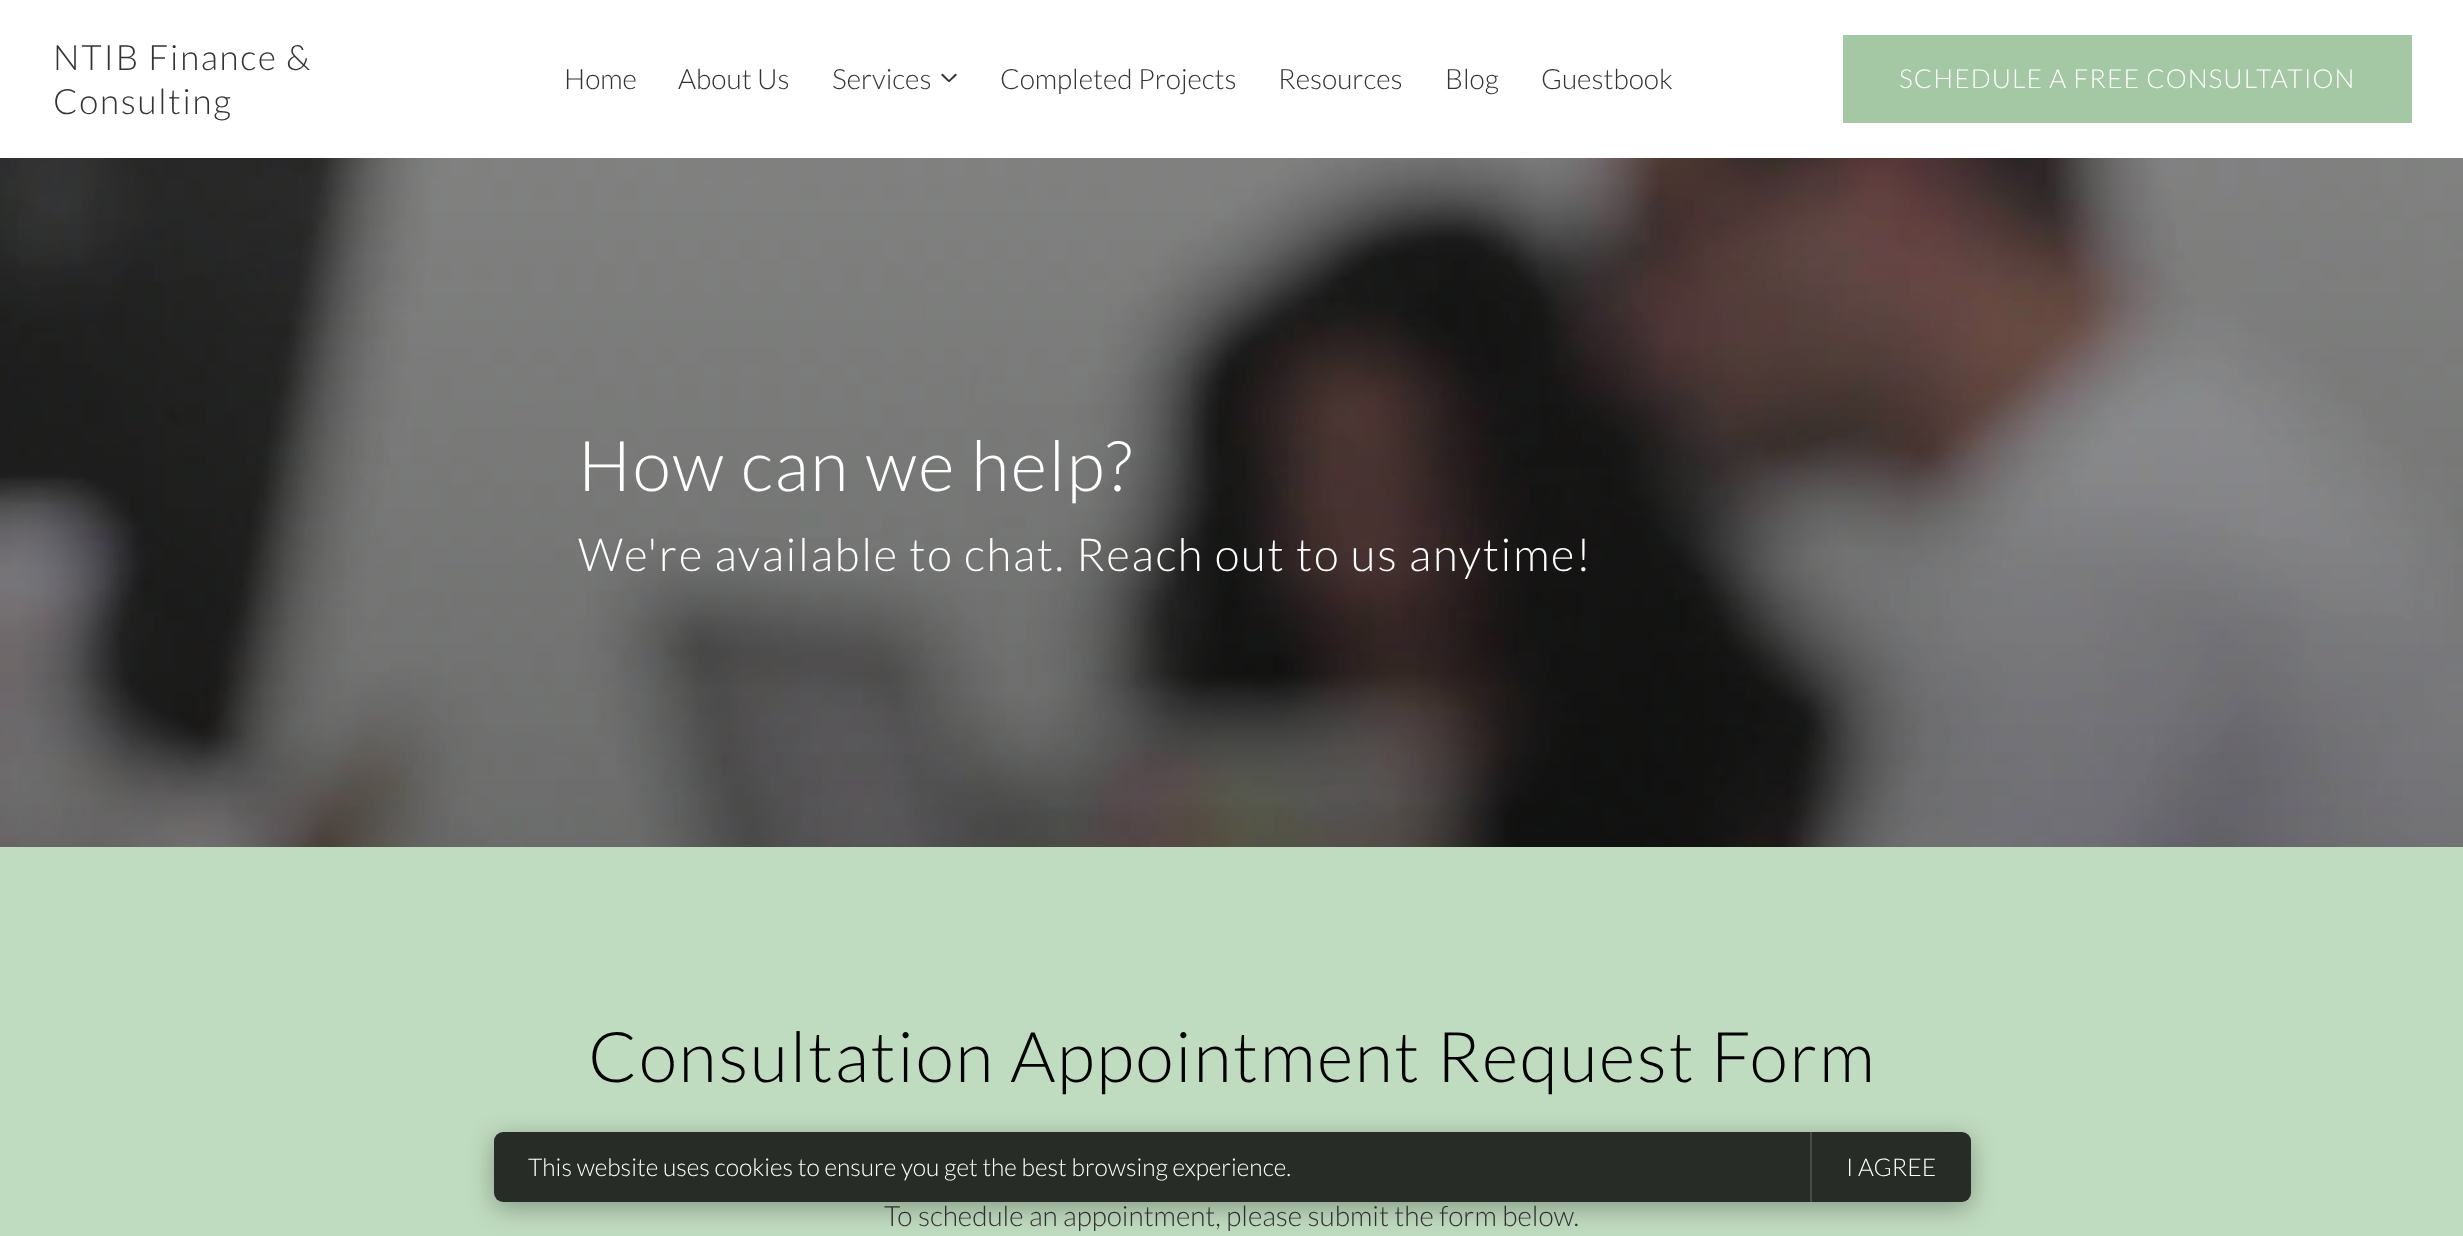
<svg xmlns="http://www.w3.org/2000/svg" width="2463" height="1236">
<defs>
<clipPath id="clip1"><path d="M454 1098h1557v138h-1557zm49 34h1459c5 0 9 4 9 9v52c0 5-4 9-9 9h-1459c-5 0-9-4-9-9v-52c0-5 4-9 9-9z" clip-rule="evenodd"/></clipPath>
</defs>
<rect width="100%" height="100%" fill="#fff"/>
<text x="53" y="70" style="font-family:Lato;font-size:35px;font-weight:300;letter-spacing:1.75px;fill:#333">NTIB Finance &amp;</text>
<text x="53" y="114" style="font-family:Lato;font-size:35px;font-weight:300;letter-spacing:1.75px;fill:#333">Consulting</text>
<text x="564" y="89" style="font-family:Lato;font-size:28px;font-weight:300;fill:#333">Home</text>
<text x="678" y="89" style="font-family:Lato;font-size:28px;font-weight:300;fill:#333">About Us</text>
<text x="832" y="89" style="font-family:Lato;font-size:28px;font-weight:300;fill:#333">Services</text>
<path d="M942.5 73.5l7.5 7.5l-1.5 1l-7.5-7z" fill="#333"/>
<path d="M948 81l7.5-7.5l1.5 1.5l-7.5 7z" fill="#333"/>
<text x="1000" y="89" style="font-family:Lato;font-size:28px;font-weight:300;fill:#333">Completed Projects</text>
<text x="1278" y="89" style="font-family:Lato;font-size:28px;font-weight:300;fill:#333">Resources</text>
<text x="1445" y="89" style="font-family:Lato;font-size:28px;font-weight:300;fill:#333">Blog</text>
<text x="1541" y="89" style="font-family:Lato;font-size:28px;font-weight:300;fill:#333">Guestbook</text>
<rect x="1843" y="35" width="569" height="88" fill="#a3c8a3"/>
<text x="1899" y="88" style="font-family:Lato;font-size:26.25px;font-weight:300;letter-spacing:1.05px;fill:#fff">SCHEDULE A FREE CONSULTATION</text>
<image x="0" y="158" width="2463" height="689" href="media/1.png"/>
<text x="578" y="491" style="font-family:Lato;font-size:70px;font-weight:300;letter-spacing:1.75px;fill:#fff">How can we help?</text>
<text x="578" y="571" style="font-family:Lato;font-size:45.5px;font-weight:300;letter-spacing:1.75px;fill:#fff">We're available to chat. Reach out to us anytime!</text>
<rect y="847" width="2463" height="389" fill="#c0dcc0"/>
<text x="588" y="1082" style="font-family:Lato;font-size:70px;font-weight:300;letter-spacing:1.75px;fill:#000">Consultation Appointment Request Form</text>
<text x="884" y="1226" style="font-family:Lato;font-size:28px;font-weight:300;fill:#333">To schedule an appointment, please submit the form below.</text>
<g clip-path="url(#clip1)">
<rect x="494" y="1138" width="1477" height="70" rx="9" fill="#0000004d" filter="blur(13px)"/>
</g>
<rect x="494" y="1132" width="1477" height="70" rx="9" fill="#000000cc"/>
<rect x="1810" y="1132" width="2" height="70" fill="#474c47"/>
<text x="528" y="1176" style="font-family:Lato;font-size:24.5px;font-weight:300;fill:#fff">This website uses cookies to ensure you get the best browsing experience.</text>
<text x="1846" y="1176" style="font-family:Lato;font-size:24.5px;font-weight:300;fill:#fff">I AGREE</text>
</svg>
